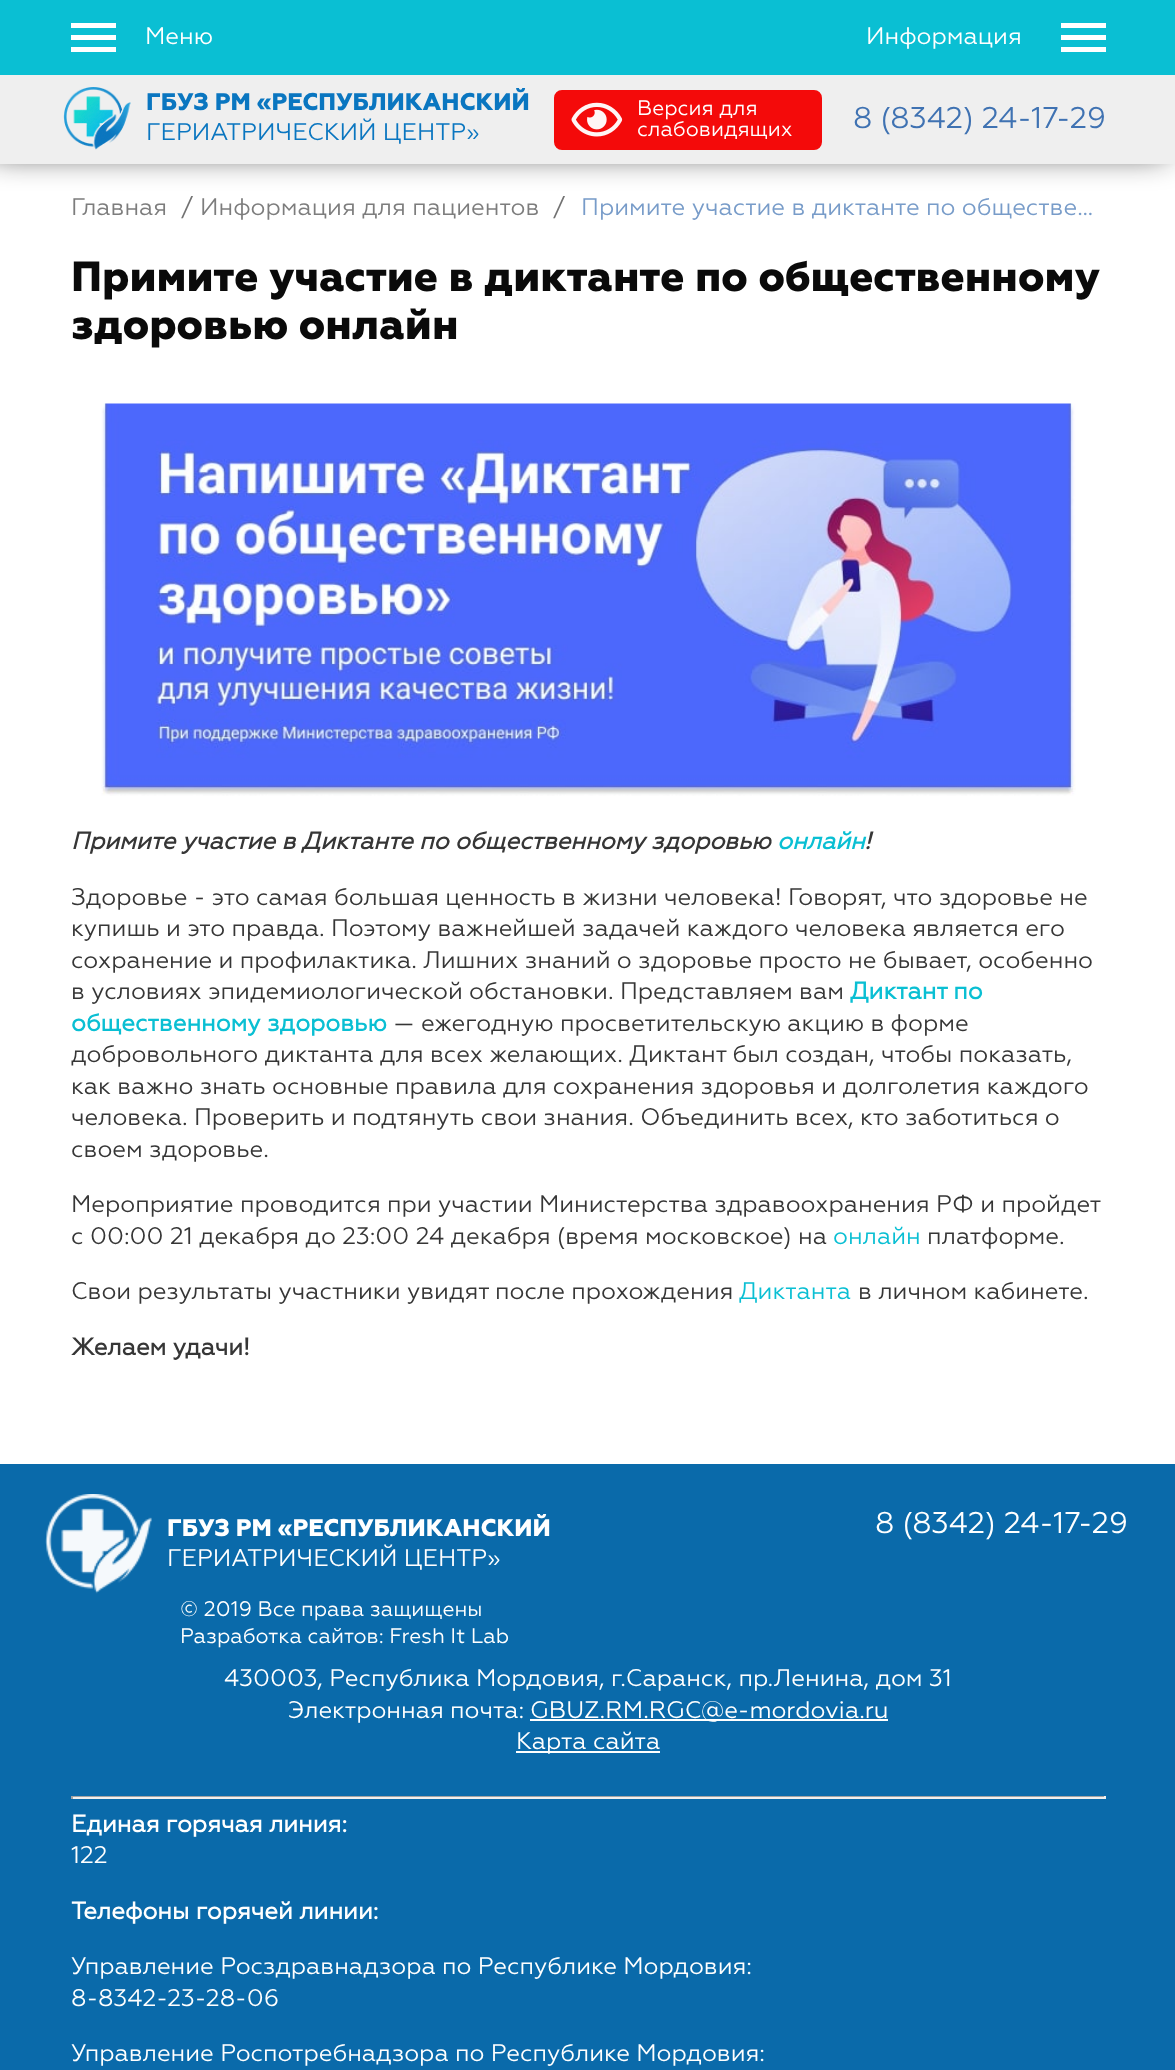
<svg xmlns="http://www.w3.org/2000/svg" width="1175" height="2070">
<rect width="100%" height="100%" fill="#fff"/>
<rect x="-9" y="-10" width="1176" height="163" fill="#0a0a0ae6" filter="blur(16px)"/>
<rect width="1175" height="75" fill="#0abfd3"/>
<rect x="71" y="23" width="45" height="5" fill="#fff"/>
<rect x="71" y="35" width="45" height="5" fill="#fff"/>
<text x="145" y="44" style="font-family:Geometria;font-size:24px;fill:#fff">Меню</text>
<rect x="71" y="47" width="45" height="5" fill="#fff"/>
<rect x="1061" y="23" width="45" height="5" fill="#fff"/>
<text x="866" y="44" style="font-family:Geometria;font-size:24px;fill:#fff">Информация</text>
<rect x="1061" y="35" width="45" height="5" fill="#fff"/>
<rect x="1061" y="47" width="45" height="5" fill="#fff"/>
<rect y="75" width="1175" height="89" fill="#efefef"/>
<image x="63" y="87" width="68" height="63" href="media/1.png"/>
<text x="146" y="110" style="font-family:Geometria;font-size:24px;font-weight:800;fill:#0a76c0">ГБУЗ РМ «РЕСПУБЛИКАНСКИЙ</text>
<text x="146" y="140" style="font-family:Geometria;font-size:24px;fill:#0a76c0">ГЕРИАТРИЧЕСКИЙ ЦЕНТР»</text>
<rect x="555.5" y="91.5" width="265" height="57" rx="6.5" fill="#f40a0a" stroke="#f40a0a" stroke-width="3"/>
<image x="571" y="102" width="52" height="35" href="media/2.png"/>
<text x="637" y="115" style="font-family:Geometria;font-size:21px;fill:#fff">Версия для</text>
<text x="637" y="136" style="font-family:Geometria;font-size:21px;fill:#fff">слабовидящих</text>
<text x="853" y="128" style="font-family:Geometria;font-size:30px;fill:#3f72b2">8 (8342) 24-17-29</text>
<text x="71" y="215" style="font-family:Geometria;font-size:24px;fill:#7d7d7d">Главная</text>
<text x="181" y="215" style="font-family:Geometria;font-size:24px;fill:#727272">/</text>
<text x="200" y="215" style="font-family:Geometria;font-size:24px;fill:#7d7d7d">Информация для пациентов</text>
<text x="553" y="215" style="font-family:Geometria;font-size:24px;fill:#727272">/</text>
<text x="581" y="215" style="font-family:Geometria;font-size:24px;fill:#789cc9">Примите участие в диктанте по обществе…</text>
<text x="71" y="291" style="font-family:Geometria;font-size:42px;font-weight:800;fill:#0a0a0a">Примите участие в диктанте по общественному</text>
<text x="71" y="339" style="font-family:Geometria;font-size:42px;font-weight:800;fill:#0a0a0a">здоровью онлайн</text>
<image x="101" y="403" width="975" height="393" href="media/3.png"/>
<text x="71" y="849" style="font-family:Geometria;font-size:24px;font-weight:bold;font-style:italic;fill:#363636">Примите участие в Диктанте по общественному здоровью</text>
<text x="777" y="849" style="font-family:Geometria;font-size:24px;font-weight:bold;font-style:italic;fill:#0abfd3">онлайн</text>
<text x="864" y="849" style="font-family:Geometria;font-size:24px;font-weight:bold;font-style:italic;fill:#363636">!</text>
<text x="71" y="905" style="font-family:Geometria;font-size:24px;fill:#363636">Здоровье - это самая большая ценность в жизни человека! Говорят, что здоровье не</text>
<text x="71" y="936" style="font-family:Geometria;font-size:24px;fill:#363636">купишь и это правда. Поэтому важнейшей задачей каждого человека является его</text>
<text x="71" y="968" style="font-family:Geometria;font-size:24px;fill:#363636">сохранение и профилактика. Лишних знаний о здоровье просто не бывает, особенно</text>
<text x="71" y="999" style="font-family:Geometria;font-size:24px;fill:#363636">в условиях эпидемиологической обстановки. Представляем вам</text>
<text x="850" y="999" style="font-family:Geometria;font-size:24px;font-weight:bold;fill:#0abfd3">Диктант по</text>
<text x="71" y="1031" style="font-family:Geometria;font-size:24px;font-weight:bold;fill:#0abfd3">общественному здоровью</text>
<text x="393" y="1031" style="font-family:Geometria;font-size:24px;fill:#363636">— ежегодную просветительскую акцию в форме</text>
<text x="71" y="1062" style="font-family:Geometria;font-size:24px;fill:#363636">добровольного диктанта для всех желающих. Диктант был создан, чтобы показать,</text>
<text x="71" y="1094" style="font-family:Geometria;font-size:24px;fill:#363636">как важно знать основные правила для сохранения здоровья и долголетия каждого</text>
<text x="71" y="1125" style="font-family:Geometria;font-size:24px;fill:#363636">человека. Проверить и подтянуть свои знания. Объединить всех, кто заботиться о</text>
<text x="71" y="1157" style="font-family:Geometria;font-size:24px;fill:#363636">своем здоровье.</text>
<text x="71" y="1212" style="font-family:Geometria;font-size:24px;fill:#363636">Мероприятие проводится при участии Министерства здравоохранения РФ и пройдет</text>
<text x="71" y="1244" style="font-family:Geometria;font-size:24px;fill:#363636">с 00:00 21 декабря до 23:00 24 декабря (время московское) на</text>
<text x="833" y="1244" style="font-family:Geometria;font-size:24px;fill:#0abfd3">онлайн</text>
<text x="927" y="1244" style="font-family:Geometria;font-size:24px;fill:#363636">платформе.</text>
<text x="71" y="1299" style="font-family:Geometria;font-size:24px;fill:#363636">Свои результаты участники увидят после прохождения</text>
<text x="739" y="1299" style="font-family:Geometria;font-size:24px;fill:#0abfd3">Диктанта</text>
<text x="858" y="1299" style="font-family:Geometria;font-size:24px;fill:#363636">в личном кабинете.</text>
<text x="71" y="1355" style="font-family:Geometria;font-size:24px;font-weight:bold;fill:#363636">Желаем удачи!</text>
<rect y="1464" width="1175" height="606" fill="#0a6aaa"/>
<image x="45" y="1494" width="107" height="100" href="media/4.png"/>
<text x="167" y="1536" style="font-family:Geometria;font-size:24px;font-weight:800;fill:#fff">ГБУЗ РМ «РЕСПУБЛИКАНСКИЙ</text>
<text x="167" y="1566" style="font-family:Geometria;font-size:24px;fill:#fff">ГЕРИАТРИЧЕСКИЙ ЦЕНТР»</text>
<text x="180" y="1616" style="font-family:Geometria;font-size:21px;fill:#fff">© 2019 Все права защищены</text>
<text x="180" y="1643" style="font-family:Geometria;font-size:21px;fill:#fff">Разработка сайтов: Fresh It Lab</text>
<text x="875" y="1533" style="font-family:Geometria;font-size:30px;fill:#fff">8 (8342) 24-17-29</text>
<text x="224" y="1686" style="font-family:Geometria;font-size:24px;fill:#fff">430003, Республика Мордовия, г.Саранск, пр.Ленина, дом 31</text>
<text x="288" y="1718" style="font-family:Geometria;font-size:24px;fill:#fff">Электронная почта:</text>
<rect x="530" y="1719" width="358" height="2" fill="#fff"/>
<text x="530" y="1718" style="font-family:Geometria;font-size:24px;fill:#fff">GBUZ.RM.RGC@e-mordovia.ru</text>
<rect x="516" y="1751" width="144" height="2" fill="#fff"/>
<text x="516" y="1749" style="font-family:Geometria;font-size:24px;fill:#fff">Карта сайта</text>
<rect x="71" y="1796" width="1035" height="1" fill="#a3a3a3"/>
<rect x="1104" y="1796" width="2" height="3" fill="#efefef"/>
<rect x="71" y="1797" width="1035" height="2" fill="#efefef"/>
<rect x="71" y="1796" width="2" height="3" fill="#a3a3a3"/>
<text x="71" y="1832" style="font-family:Geometria;font-size:24px;font-weight:bold;fill:#fff">Единая горячая линия:</text>
<text x="71" y="1863" style="font-family:Geometria;font-size:24px;fill:#fff">122</text>
<text x="71" y="1919" style="font-family:Geometria;font-size:24px;font-weight:bold;fill:#fff">Телефоны горячей линии:</text>
<text x="71" y="1974" style="font-family:Geometria;font-size:24px;fill:#fff">Управление Росздравнадзора по Республике Мордовия:</text>
<text x="71" y="2006" style="font-family:Geometria;font-size:24px;fill:#fff">8-8342-23-28-06</text>
<text x="71" y="2061" style="font-family:Geometria;font-size:24px;fill:#fff">Управление Роспотребнадзора по Республике Мордовия:</text>
</svg>
